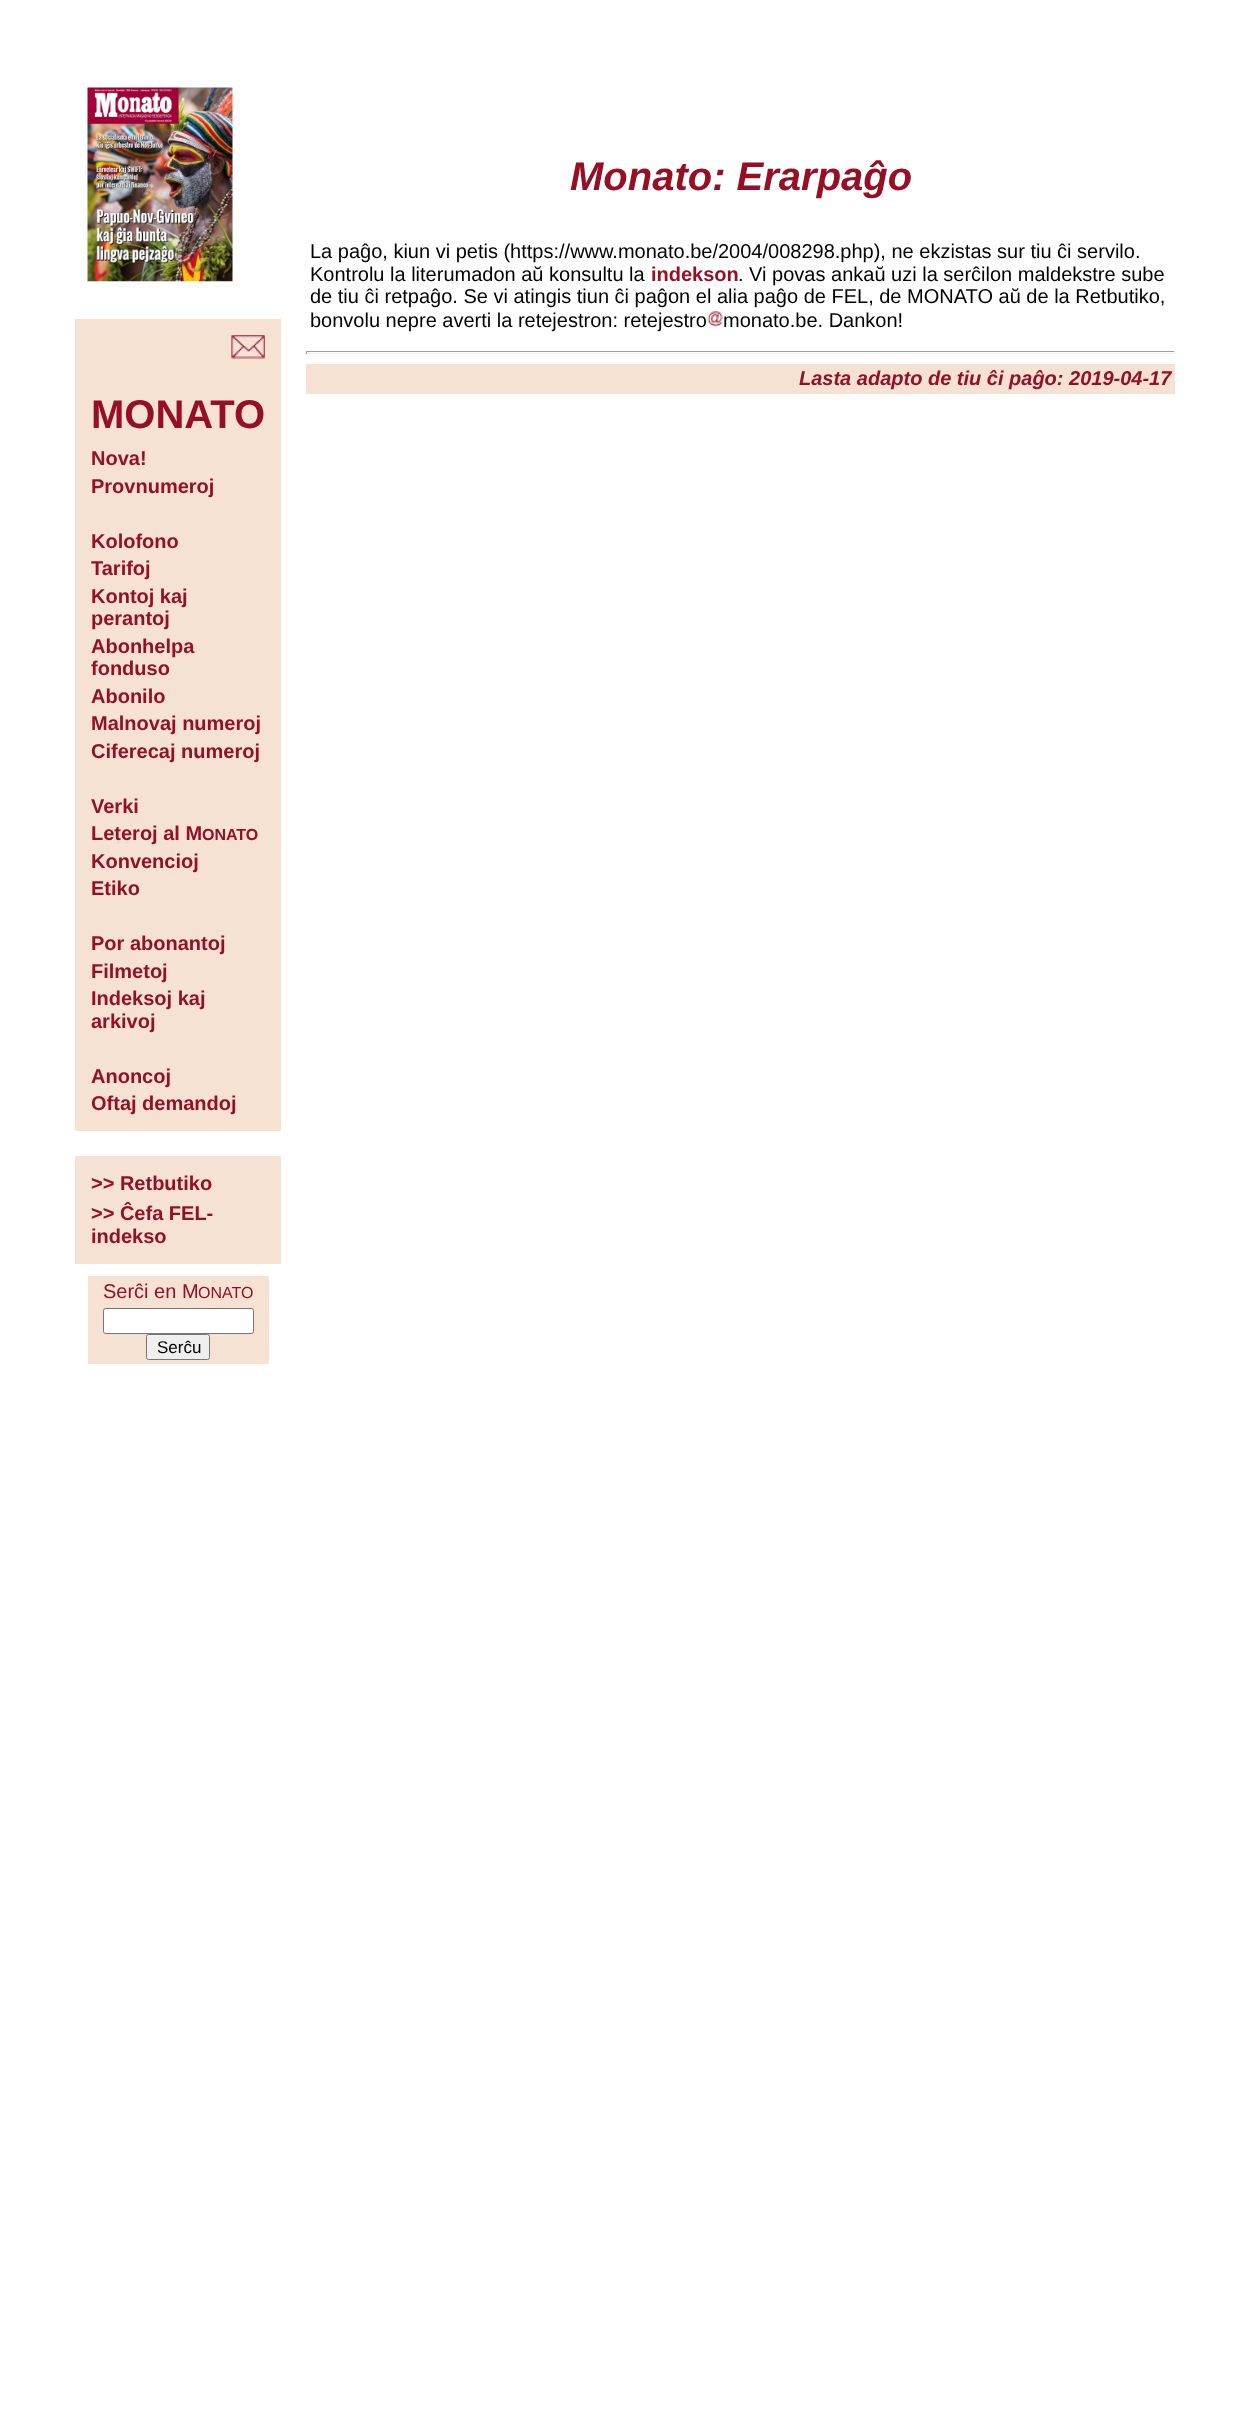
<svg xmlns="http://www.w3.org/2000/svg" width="1250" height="2433">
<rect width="100%" height="100%" fill="#fff"/>
<text x="570" y="190" style="font-family:Liberation Sans;font-size:40px;font-weight:bold;font-style:italic;fill:#951025">Monato: Erarpaĝo</text>
<text x="310" y="258" style="font-family:Liberation Sans;font-size:20px;fill:#000">La paĝo, kiun vi petis (https://www.monato.be/2004/008298.php), ne ekzistas sur tiu ĉi servilo.</text>
<text x="310" y="281" style="font-family:Liberation Sans;font-size:20px;fill:#000">Kontrolu la literumadon aŭ konsultu la</text>
<text x="651" y="281" style="font-family:Liberation Sans;font-size:20px;font-weight:bold;fill:#951025">indekson</text>
<text x="738" y="281" style="font-family:Liberation Sans;font-size:20px;fill:#000">. Vi povas ankaŭ uzi la serĉilon maldekstre sube</text>
<text x="310" y="303" style="font-family:Liberation Sans;font-size:20px;fill:#000">de tiu ĉi retpaĝo. Se vi atingis tiun ĉi paĝon el alia paĝo de FEL, de MONATO aŭ de la Retbutiko,</text>
<text x="310" y="327" style="font-family:Liberation Sans;font-size:20px;fill:#000">bonvolu nepre averti la retejestron: retejestro</text>
<image x="707" y="311" width="16" height="16" href="media/1.png"/>
<text x="723" y="327" style="font-family:Liberation Sans;font-size:20px;fill:#000">monato.be. Dankon!</text>
<rect x="306" y="351" width="869" height="1" fill="#9f9f9f"/>
<rect x="1174" y="351" width="1" height="3" fill="#eee"/>
<rect x="306" y="353" width="869" height="1" fill="#eee"/>
<rect x="306" y="351" width="1" height="3" fill="#9f9f9f"/>
<rect x="306" y="364" width="869" height="30" fill="#f6e2d3"/>
<text x="799" y="385" style="font-family:Liberation Sans;font-size:20px;font-weight:bold;font-style:italic;fill:#951025">Lasta adapto de tiu ĉi paĝo: 2019-04-17</text>
<image x="87" y="87" width="146" height="195" href="media/2.png"/>
<rect x="75" y="319" width="206" height="812" fill="#f6e2d3"/>
<image x="231" y="335" width="34" height="24" href="media/3.png"/>
<text x="91" y="428" style="font-family:Liberation Sans;font-size:40px;font-weight:bold;fill:#951025">MONATO</text>
<text x="91" y="465" style="font-family:Liberation Sans;font-size:20px;font-weight:bold;fill:#951025">Nova!</text>
<text x="91" y="493" style="font-family:Liberation Sans;font-size:20px;font-weight:bold;fill:#951025">Provnumeroj</text>
<text x="91" y="548" style="font-family:Liberation Sans;font-size:20px;font-weight:bold;fill:#951025">Kolofono</text>
<text x="91" y="575" style="font-family:Liberation Sans;font-size:20px;font-weight:bold;fill:#951025">Tarifoj</text>
<text x="91" y="603" style="font-family:Liberation Sans;font-size:20px;font-weight:bold;fill:#951025">Kontoj kaj</text>
<text x="91" y="625" style="font-family:Liberation Sans;font-size:20px;font-weight:bold;fill:#951025">perantoj</text>
<text x="91" y="653" style="font-family:Liberation Sans;font-size:20px;font-weight:bold;fill:#951025">Abonhelpa</text>
<text x="91" y="675" style="font-family:Liberation Sans;font-size:20px;font-weight:bold;fill:#951025">fonduso</text>
<text x="91" y="703" style="font-family:Liberation Sans;font-size:20px;font-weight:bold;fill:#951025">Abonilo</text>
<text x="91" y="730" style="font-family:Liberation Sans;font-size:20px;font-weight:bold;fill:#951025">Malnovaj numeroj</text>
<text x="91" y="758" style="font-family:Liberation Sans;font-size:20px;font-weight:bold;fill:#951025">Ciferecaj numeroj</text>
<text x="91" y="813" style="font-family:Liberation Sans;font-size:20px;font-weight:bold;fill:#951025">Verki</text>
<text x="91" y="840" style="font-family:Liberation Sans;font-size:20px;font-weight:bold;fill:#951025">Leteroj al M</text>
<text x="202" y="840" style="font-family:Liberation Sans;font-size:16px;font-weight:bold;fill:#951025">ONATO</text>
<text x="91" y="868" style="font-family:Liberation Sans;font-size:20px;font-weight:bold;fill:#951025">Konvencioj</text>
<text x="91" y="895" style="font-family:Liberation Sans;font-size:20px;font-weight:bold;fill:#951025">Etiko</text>
<text x="91" y="950" style="font-family:Liberation Sans;font-size:20px;font-weight:bold;fill:#951025">Por abonantoj</text>
<text x="91" y="978" style="font-family:Liberation Sans;font-size:20px;font-weight:bold;fill:#951025">Filmetoj</text>
<text x="91" y="1005" style="font-family:Liberation Sans;font-size:20px;font-weight:bold;fill:#951025">Indeksoj kaj</text>
<text x="91" y="1028" style="font-family:Liberation Sans;font-size:20px;font-weight:bold;fill:#951025">arkivoj</text>
<text x="91" y="1083" style="font-family:Liberation Sans;font-size:20px;font-weight:bold;fill:#951025">Anoncoj</text>
<text x="91" y="1110" style="font-family:Liberation Sans;font-size:20px;font-weight:bold;fill:#951025">Oftaj demandoj</text>
<rect x="75" y="1156" width="206" height="108" fill="#f6e2d3"/>
<text x="91" y="1190" style="font-family:Liberation Sans;font-size:20px;font-weight:bold;fill:#951025">&gt;&gt; Retbutiko</text>
<text x="91" y="1220" style="font-family:Liberation Sans;font-size:20px;font-weight:bold;fill:#951025">&gt;&gt; Ĉefa FEL-</text>
<text x="91" y="1243" style="font-family:Liberation Sans;font-size:20px;font-weight:bold;fill:#951025">indekso</text>
<rect x="88" y="1276" width="181" height="88" fill="#f6e2d3"/>
<text x="103" y="1298" style="font-family:Liberation Sans;font-size:20px;fill:#951025">Serĉi en M</text>
<text x="198" y="1298" style="font-family:Liberation Sans;font-size:16px;fill:#951025">ONATO</text>
<rect x="103.5" y="1308.5" width="150" height="25" rx="2" fill="#fff" stroke="#767676"/>
<rect x="146.5" y="1334.5" width="63" height="25" rx="2" fill="#efefef" stroke="#767676"/>
<text x="157" y="1353" style="font-family:Liberation Sans;font-size:17px;fill:#000">Serĉu</text>
</svg>
